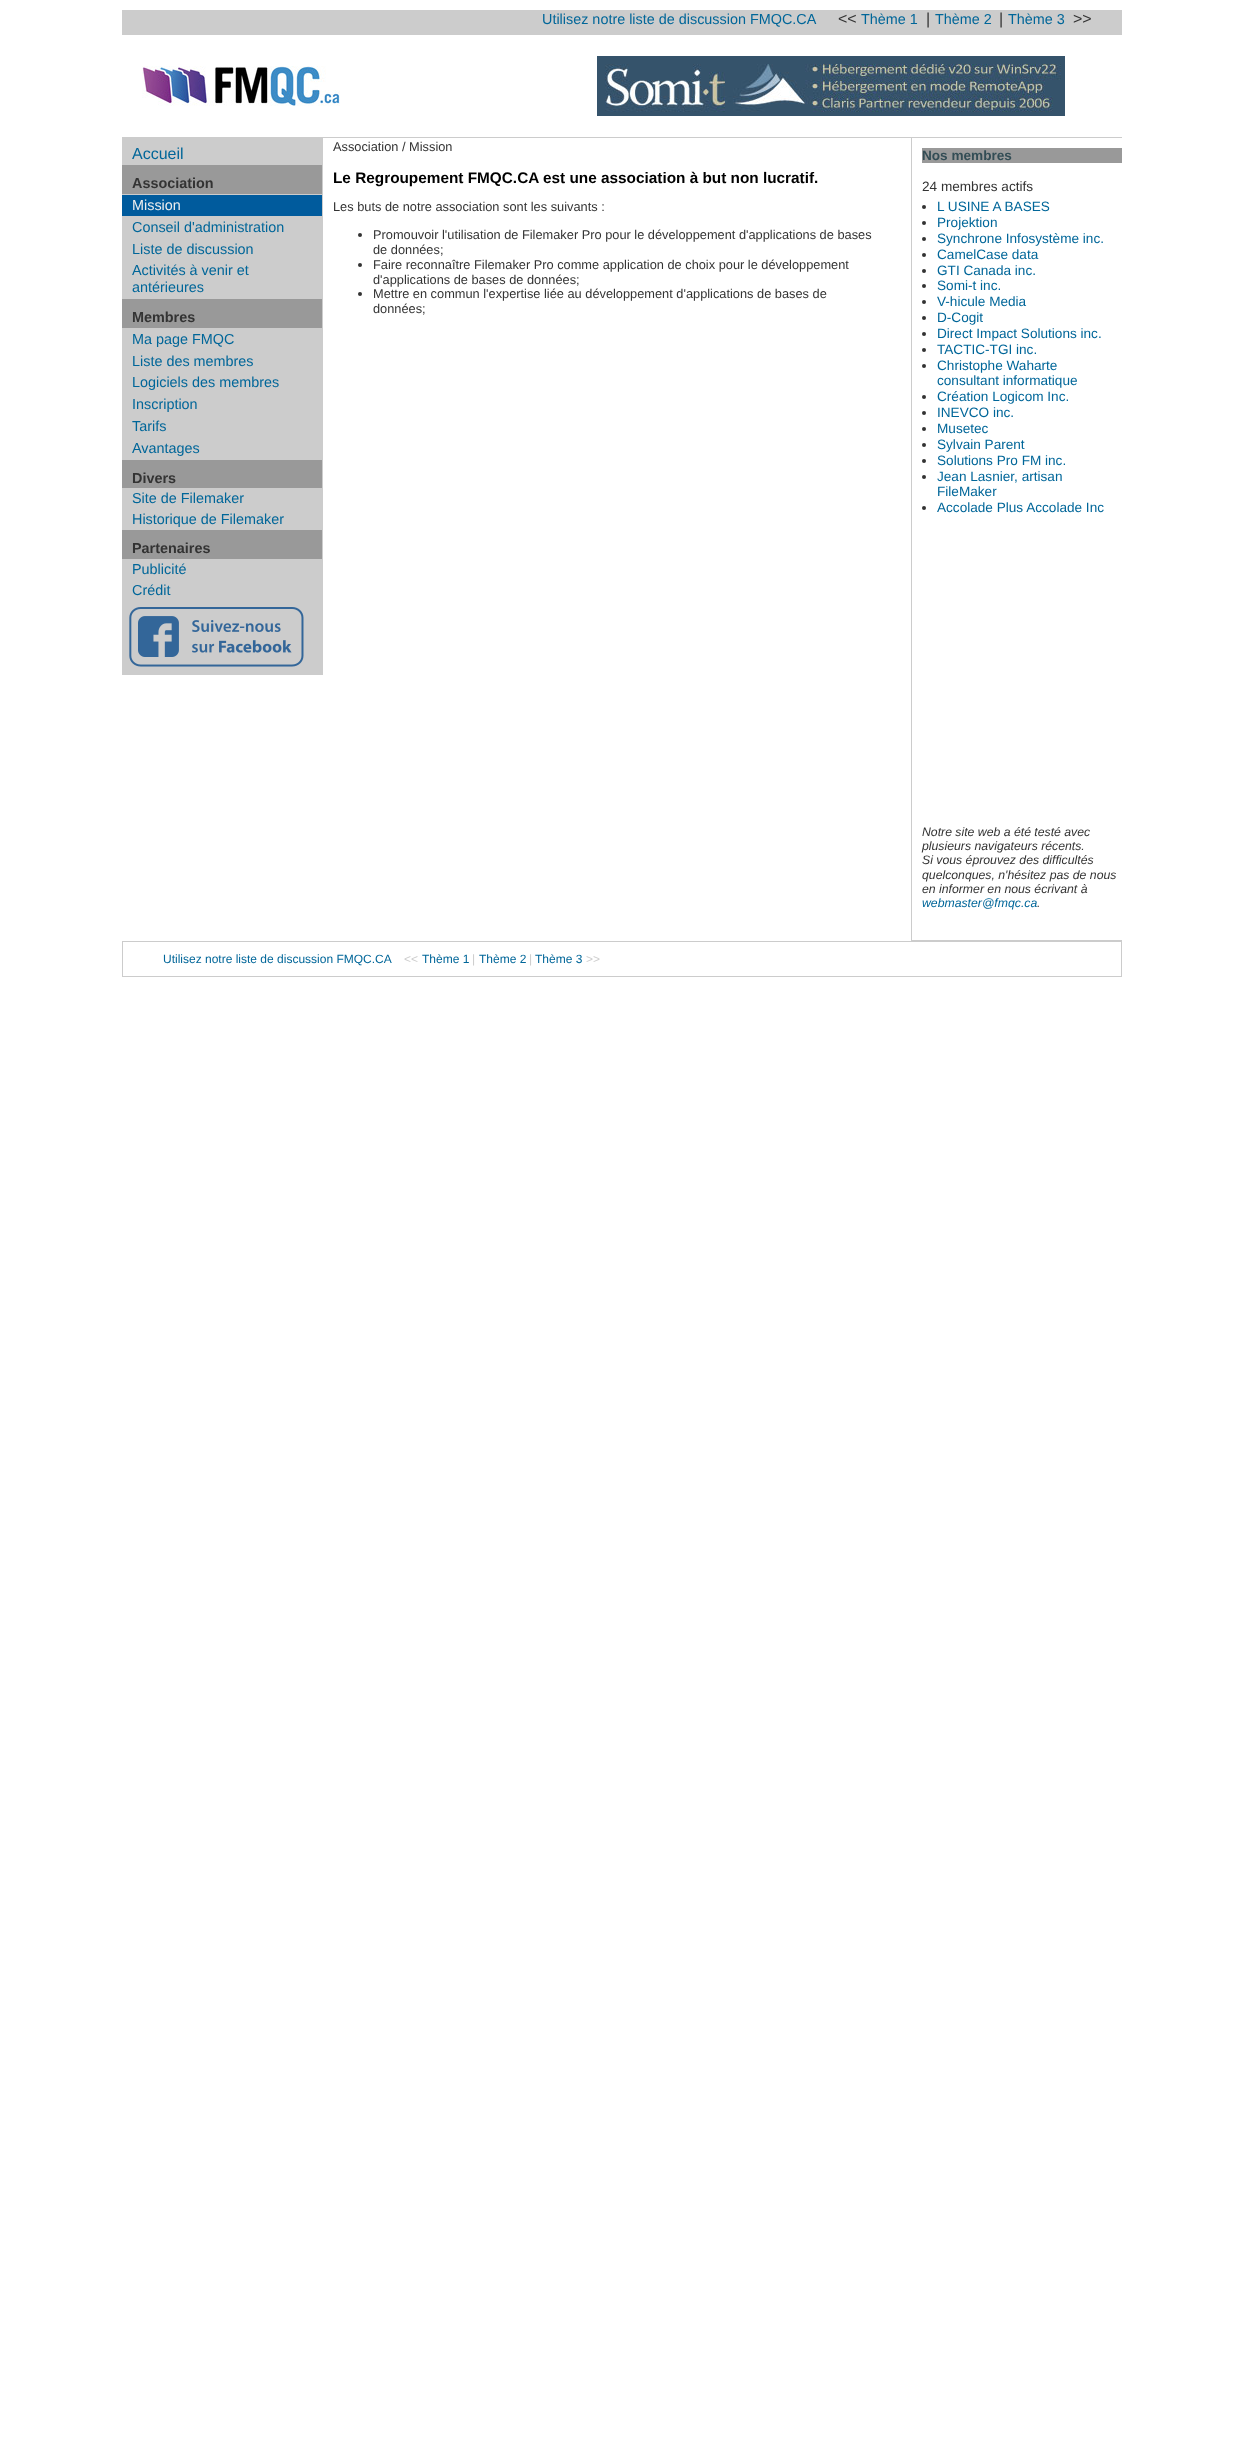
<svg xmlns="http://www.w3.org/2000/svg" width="1244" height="2455">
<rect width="100%" height="100%" fill="#fff"/>
<rect x="122" y="137" width="1000" height="1" fill="#ccc"/>
<rect x="122" y="10" width="1000" height="25" fill="#ccc"/>
<text x="542" y="24" style="font-family:Liberation Sans;font-size:14.4px;fill:#069">Utilisez notre liste de discussion FMQC.CA</text>
<text x="838" y="24" style="font-family:Liberation Sans;font-size:16px;fill:#333">&lt;&lt;</text>
<text x="861" y="24" style="font-family:Liberation Sans;font-size:14.4px;fill:#069">Thème 1</text>
<text x="926" y="24" style="font-family:Liberation Sans;font-size:16px;fill:#333">|</text>
<text x="935" y="24" style="font-family:Liberation Sans;font-size:14.4px;fill:#069">Thème 2</text>
<text x="999" y="24" style="font-family:Liberation Sans;font-size:16px;fill:#333">|</text>
<text x="1008" y="24" style="font-family:Liberation Sans;font-size:14.4px;fill:#069">Thème 3</text>
<text x="1073" y="24" style="font-family:Liberation Sans;font-size:16px;fill:#333">&gt;&gt;</text>
<image x="142" y="66" width="198" height="40" href="media/1.png"/>
<image x="597" y="56" width="468" height="60" href="media/2.png"/>
<rect x="122" y="138" width="201" height="537" fill="#ccc"/>
<text x="132" y="159" style="font-family:Liberation Sans;font-size:16px;fill:#069">Accueil</text>
<rect x="122" y="165" width="200" height="29" fill="#999"/>
<text x="132" y="188" style="font-family:Liberation Sans;font-size:14.4px;font-weight:bold;fill:#333">Association</text>
<rect x="122" y="195" width="200" height="21" fill="#005b9d"/>
<text x="132" y="210" style="font-family:Liberation Sans;font-size:14.4px;fill:#eee">Mission</text>
<text x="132" y="232" style="font-family:Liberation Sans;font-size:14.4px;fill:#069">Conseil d'administration</text>
<text x="132" y="254" style="font-family:Liberation Sans;font-size:14.4px;fill:#069">Liste de discussion</text>
<text x="132" y="275" style="font-family:Liberation Sans;font-size:14.4px;fill:#069">Activités à venir et</text>
<text x="132" y="292" style="font-family:Liberation Sans;font-size:14.4px;fill:#069">antérieures</text>
<rect x="122" y="299" width="200" height="29" fill="#999"/>
<text x="132" y="322" style="font-family:Liberation Sans;font-size:14.4px;font-weight:bold;fill:#333">Membres</text>
<text x="132" y="344" style="font-family:Liberation Sans;font-size:14.4px;fill:#069">Ma page FMQC</text>
<text x="132" y="366" style="font-family:Liberation Sans;font-size:14.4px;fill:#069">Liste des membres</text>
<text x="132" y="387" style="font-family:Liberation Sans;font-size:14.4px;fill:#069">Logiciels des membres</text>
<text x="132" y="409" style="font-family:Liberation Sans;font-size:14.4px;fill:#069">Inscription</text>
<text x="132" y="431" style="font-family:Liberation Sans;font-size:14.4px;fill:#069">Tarifs</text>
<text x="132" y="453" style="font-family:Liberation Sans;font-size:14.4px;fill:#069">Avantages</text>
<rect x="122" y="460" width="200" height="28" fill="#999"/>
<text x="132" y="483" style="font-family:Liberation Sans;font-size:14.4px;font-weight:bold;fill:#333">Divers</text>
<text x="132" y="503" style="font-family:Liberation Sans;font-size:14.4px;fill:#069">Site de Filemaker</text>
<text x="132" y="524" style="font-family:Liberation Sans;font-size:14.4px;fill:#069">Historique de Filemaker</text>
<rect x="122" y="530" width="200" height="29" fill="#999"/>
<text x="132" y="553" style="font-family:Liberation Sans;font-size:14.4px;font-weight:bold;fill:#333">Partenaires</text>
<text x="132" y="574" style="font-family:Liberation Sans;font-size:14.4px;fill:#069">Publicité</text>
<text x="132" y="595" style="font-family:Liberation Sans;font-size:14.4px;fill:#069">Crédit</text>
<image x="129" y="607" width="175" height="60" href="media/3.png"/>
<text x="333" y="151" style="font-family:Liberation Sans;font-size:12.8px;fill:#333">Association / Mission</text>
<text x="333" y="183" style="font-family:Liberation Sans;font-size:15.35px;font-weight:bold;fill:#000">Le Regroupement FMQC.CA est une association à but non lucratif.</text>
<text x="333" y="211" style="font-family:Liberation Sans;font-size:12.8px;fill:#333">Les buts de notre association sont les suivants :</text>
<circle cx="360" cy="235" r="2" fill="#333"/>
<text x="373" y="239" style="font-family:Liberation Sans;font-size:12.8px;fill:#333">Promouvoir l'utilisation de Filemaker Pro pour le développement d'applications de bases</text>
<text x="373" y="254" style="font-family:Liberation Sans;font-size:12.8px;fill:#333">de données;</text>
<circle cx="360" cy="265" r="2" fill="#333"/>
<text x="373" y="269" style="font-family:Liberation Sans;font-size:12.8px;fill:#333">Faire reconnaître Filemaker Pro comme application de choix pour le développement</text>
<text x="373" y="284" style="font-family:Liberation Sans;font-size:12.8px;fill:#333">d'applications de bases de données;</text>
<circle cx="360" cy="294" r="2" fill="#333"/>
<text x="373" y="298" style="font-family:Liberation Sans;font-size:12.8px;fill:#333">Mettre en commun l'expertise liée au développement d'applications de bases de</text>
<text x="373" y="313" style="font-family:Liberation Sans;font-size:12.8px;fill:#333">données;</text>
<rect x="911" y="940" width="211" height="1" fill="#ccc"/>
<rect x="911" y="138" width="1" height="803" fill="#ccc"/>
<rect x="922" y="148" width="200" height="15" fill="#999"/>
<text x="922" y="160" style="font-family:Liberation Sans;font-size:13.6px;font-weight:bold;fill:#334d55">Nos membres</text>
<text x="922" y="191" style="font-family:Liberation Sans;font-size:13.6px;fill:#333">24 membres actifs</text>
<circle cx="924" cy="207" r="2" fill="#333"/>
<text x="937" y="211" style="font-family:Liberation Sans;font-size:13.6px;fill:#069">L USINE A BASES</text>
<circle cx="924" cy="223" r="2" fill="#333"/>
<text x="937" y="227" style="font-family:Liberation Sans;font-size:13.6px;fill:#069">Projektion</text>
<circle cx="924" cy="239" r="2" fill="#333"/>
<text x="937" y="243" style="font-family:Liberation Sans;font-size:13.6px;fill:#069">Synchrone Infosystème inc.</text>
<circle cx="924" cy="255" r="2" fill="#333"/>
<text x="937" y="259" style="font-family:Liberation Sans;font-size:13.6px;fill:#069">CamelCase data</text>
<circle cx="924" cy="271" r="2" fill="#333"/>
<text x="937" y="275" style="font-family:Liberation Sans;font-size:13.6px;fill:#069">GTI Canada inc.</text>
<circle cx="924" cy="286" r="2" fill="#333"/>
<text x="937" y="290" style="font-family:Liberation Sans;font-size:13.6px;fill:#069">Somi-t inc.</text>
<circle cx="924" cy="302" r="2" fill="#333"/>
<text x="937" y="306" style="font-family:Liberation Sans;font-size:13.6px;fill:#069">V-hicule Media</text>
<circle cx="924" cy="318" r="2" fill="#333"/>
<text x="937" y="322" style="font-family:Liberation Sans;font-size:13.6px;fill:#069">D-Cogit</text>
<circle cx="924" cy="334" r="2" fill="#333"/>
<text x="937" y="338" style="font-family:Liberation Sans;font-size:13.6px;fill:#069">Direct Impact Solutions inc.</text>
<circle cx="924" cy="350" r="2" fill="#333"/>
<text x="937" y="354" style="font-family:Liberation Sans;font-size:13.6px;fill:#069">TACTIC-TGI inc.</text>
<circle cx="924" cy="366" r="2" fill="#333"/>
<text x="937" y="370" style="font-family:Liberation Sans;font-size:13.6px;fill:#069">Christophe Waharte</text>
<text x="937" y="385" style="font-family:Liberation Sans;font-size:13.6px;fill:#069">consultant informatique</text>
<circle cx="924" cy="397" r="2" fill="#333"/>
<text x="937" y="401" style="font-family:Liberation Sans;font-size:13.6px;fill:#069">Création Logicom Inc.</text>
<circle cx="924" cy="413" r="2" fill="#333"/>
<text x="937" y="417" style="font-family:Liberation Sans;font-size:13.6px;fill:#069">INEVCO inc.</text>
<circle cx="924" cy="429" r="2" fill="#333"/>
<text x="937" y="433" style="font-family:Liberation Sans;font-size:13.6px;fill:#069">Musetec</text>
<circle cx="924" cy="445" r="2" fill="#333"/>
<text x="937" y="449" style="font-family:Liberation Sans;font-size:13.6px;fill:#069">Sylvain Parent</text>
<circle cx="924" cy="461" r="2" fill="#333"/>
<text x="937" y="465" style="font-family:Liberation Sans;font-size:13.6px;fill:#069">Solutions Pro FM inc.</text>
<circle cx="924" cy="477" r="2" fill="#333"/>
<text x="937" y="481" style="font-family:Liberation Sans;font-size:13.6px;fill:#069">Jean Lasnier, artisan</text>
<text x="937" y="496" style="font-family:Liberation Sans;font-size:13.6px;fill:#069">FileMaker</text>
<circle cx="924" cy="508" r="2" fill="#333"/>
<text x="937" y="512" style="font-family:Liberation Sans;font-size:13.6px;fill:#069">Accolade Plus Accolade Inc</text>
<text x="922" y="836" style="font-family:Liberation Sans;font-size:12.25px;font-style:italic;fill:#333">Notre site web a été testé avec</text>
<text x="922" y="850" style="font-family:Liberation Sans;font-size:12.25px;font-style:italic;fill:#333">plusieurs navigateurs récents.</text>
<text x="922" y="864" style="font-family:Liberation Sans;font-size:12.25px;font-style:italic;fill:#333">Si vous éprouvez des difficultés</text>
<text x="922" y="879" style="font-family:Liberation Sans;font-size:12.25px;font-style:italic;fill:#333">quelconques, n'hésitez pas de nous</text>
<text x="922" y="893" style="font-family:Liberation Sans;font-size:12.25px;font-style:italic;fill:#333">en informer en nous écrivant à</text>
<text x="922" y="907" style="font-family:Liberation Sans;font-size:12.25px;font-style:italic;fill:#069">webmaster@fmqc.ca</text>
<text x="1037" y="907" style="font-family:Liberation Sans;font-size:12.25px;font-style:italic;fill:#333">.</text>
<rect x="122.5" y="941.5" width="999" height="35" fill="none" stroke="#ccc"/>
<text x="163" y="963" style="font-family:Liberation Sans;font-size:12px;fill:#069">Utilisez notre liste de discussion FMQC.CA</text>
<text x="404" y="963" style="font-family:Liberation Sans;font-size:12px;fill:#ccc">&lt;&lt;</text>
<text x="422" y="963" style="font-family:Liberation Sans;font-size:12px;fill:#069">Thème 1</text>
<text x="472" y="963" style="font-family:Liberation Sans;font-size:12px;fill:#ccc">|</text>
<text x="479" y="963" style="font-family:Liberation Sans;font-size:12px;fill:#069">Thème 2</text>
<text x="529" y="963" style="font-family:Liberation Sans;font-size:12px;fill:#ccc">|</text>
<text x="535" y="963" style="font-family:Liberation Sans;font-size:12px;fill:#069">Thème 3</text>
<text x="586" y="963" style="font-family:Liberation Sans;font-size:12px;fill:#ccc">&gt;&gt;</text>
</svg>
